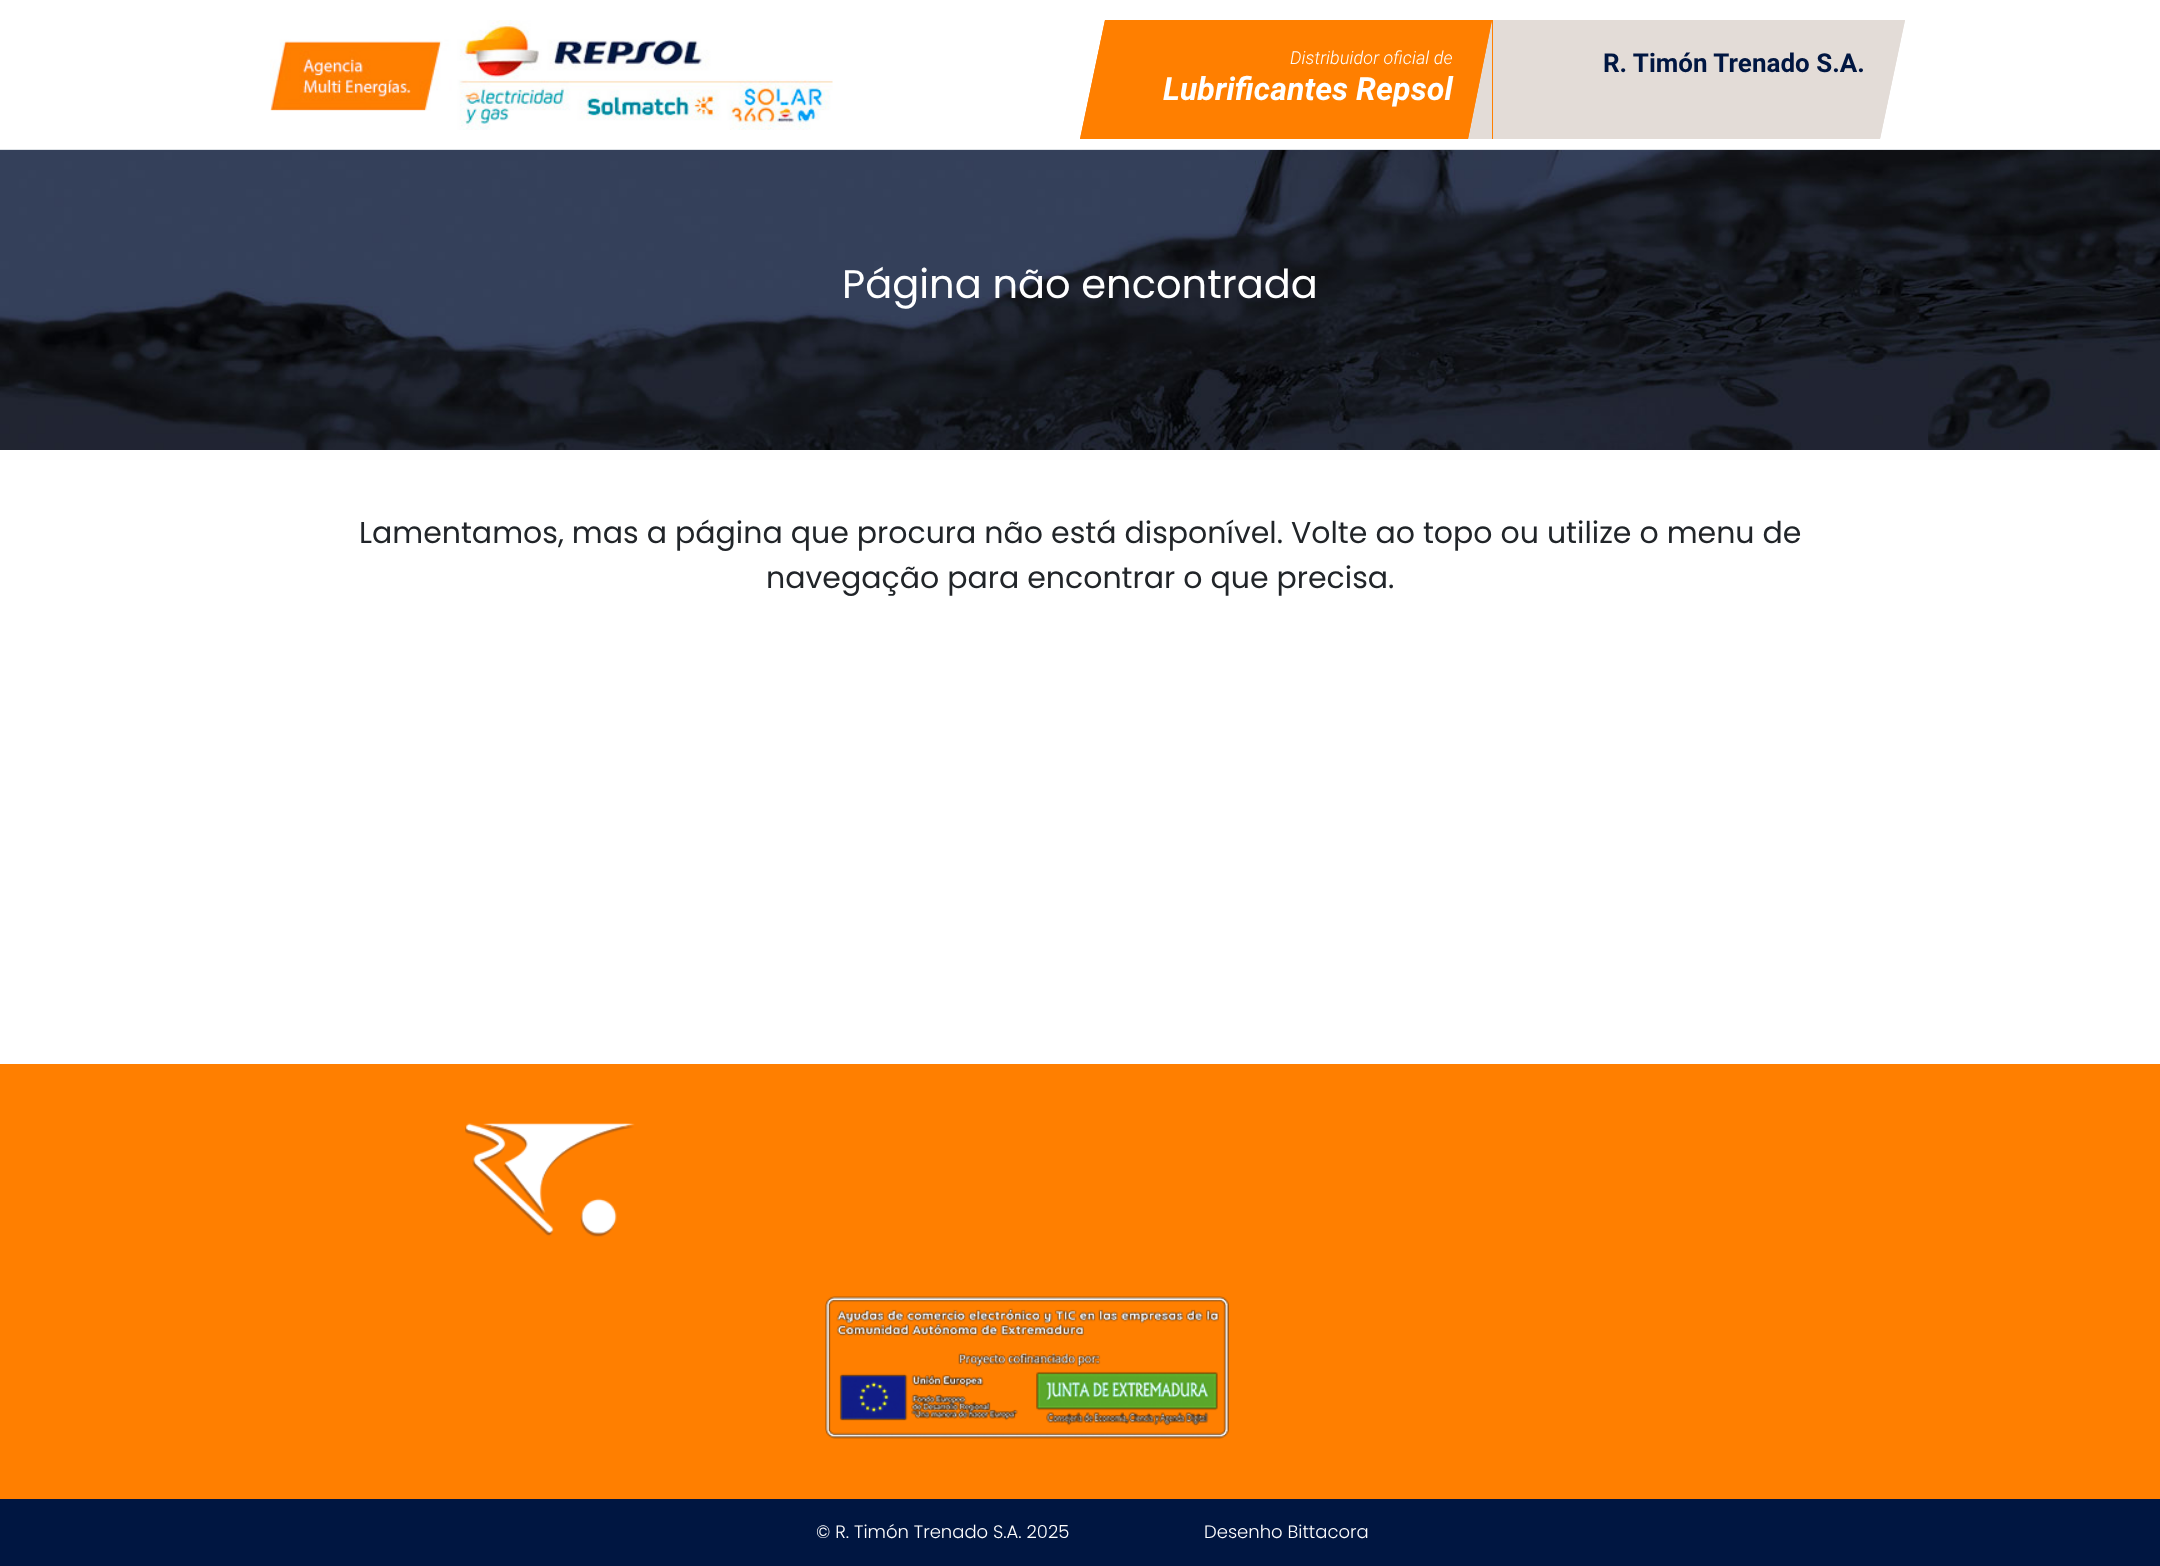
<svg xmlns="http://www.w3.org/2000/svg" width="2160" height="1566">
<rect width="100%" height="100%" fill="#fff"/>
<image x="270" y="20" width="563" height="110" href="media/1.png"/>
<rect x="1080" y="20" width="413" height="119" fill="#ff7f00"/>
<path d="M1080 20h25l-25 119z" fill="#fff"/>
<path d="M1105 20v119h-25z" fill="#ff7f00"/>
<text x="1290" y="64" style="font-family:Roboto;font-size:18px;font-weight:300;font-style:italic;fill:#fff">Distribuidor oficial de</text>
<path d="M1492 139h-24l24-119z" fill="#e3dcd7"/>
<path d="M1468 139v-119h24z" fill="#ff7f00"/>
<text x="1163" y="100" style="font-family:Roboto;font-size:32px;font-weight:bold;font-style:italic;fill:#fff">Lubrificantes Repsol</text>
<rect x="1493" y="20" width="412" height="119" fill="#e3dcd7"/>
<text x="1603" y="72" style="font-family:Roboto;font-size:26px;font-weight:bold;fill:#001641">R. Timón Trenado S.A.</text>
<path d="M1905 139h-25l25-119z" fill="#fff"/>
<path d="M1880 139v-119h25z" fill="#e3dcd7"/>
<rect y="149" width="2160" height="1" fill="#dee2e6"/>
<image x="0" y="150" width="2160" height="300" href="media/2.png"/>
<text x="842" y="298" style="font-family:Poppins;font-size:40px;fill:#fff">Página não encontrada</text>
<text x="359" y="543" style="font-family:Poppins;font-size:30px;fill:#212529">Lamentamos, mas a página que procura não está disponível. Volte ao topo ou utilize o menu de</text>
<text x="766" y="588" style="font-family:Poppins;font-size:30px;fill:#212529">navegação para encontrar o que precisa.</text>
<rect y="1064" width="2160" height="435" fill="#ff7f00"/>
<image x="465" y="1123" width="170" height="114" href="media/3.png"/>
<image x="825" y="1296" width="404" height="143" href="media/4.png"/>
<rect y="1499" width="2160" height="67" fill="#001641"/>
<text x="816" y="1538" style="font-family:Poppins;font-size:18px;font-weight:300;fill:#fff">© R. Timón Trenado S.A. 2025</text>
<text x="1204" y="1538" style="font-family:Poppins;font-size:18px;font-weight:300;fill:#fff">Desenho Bittacora</text>
</svg>
